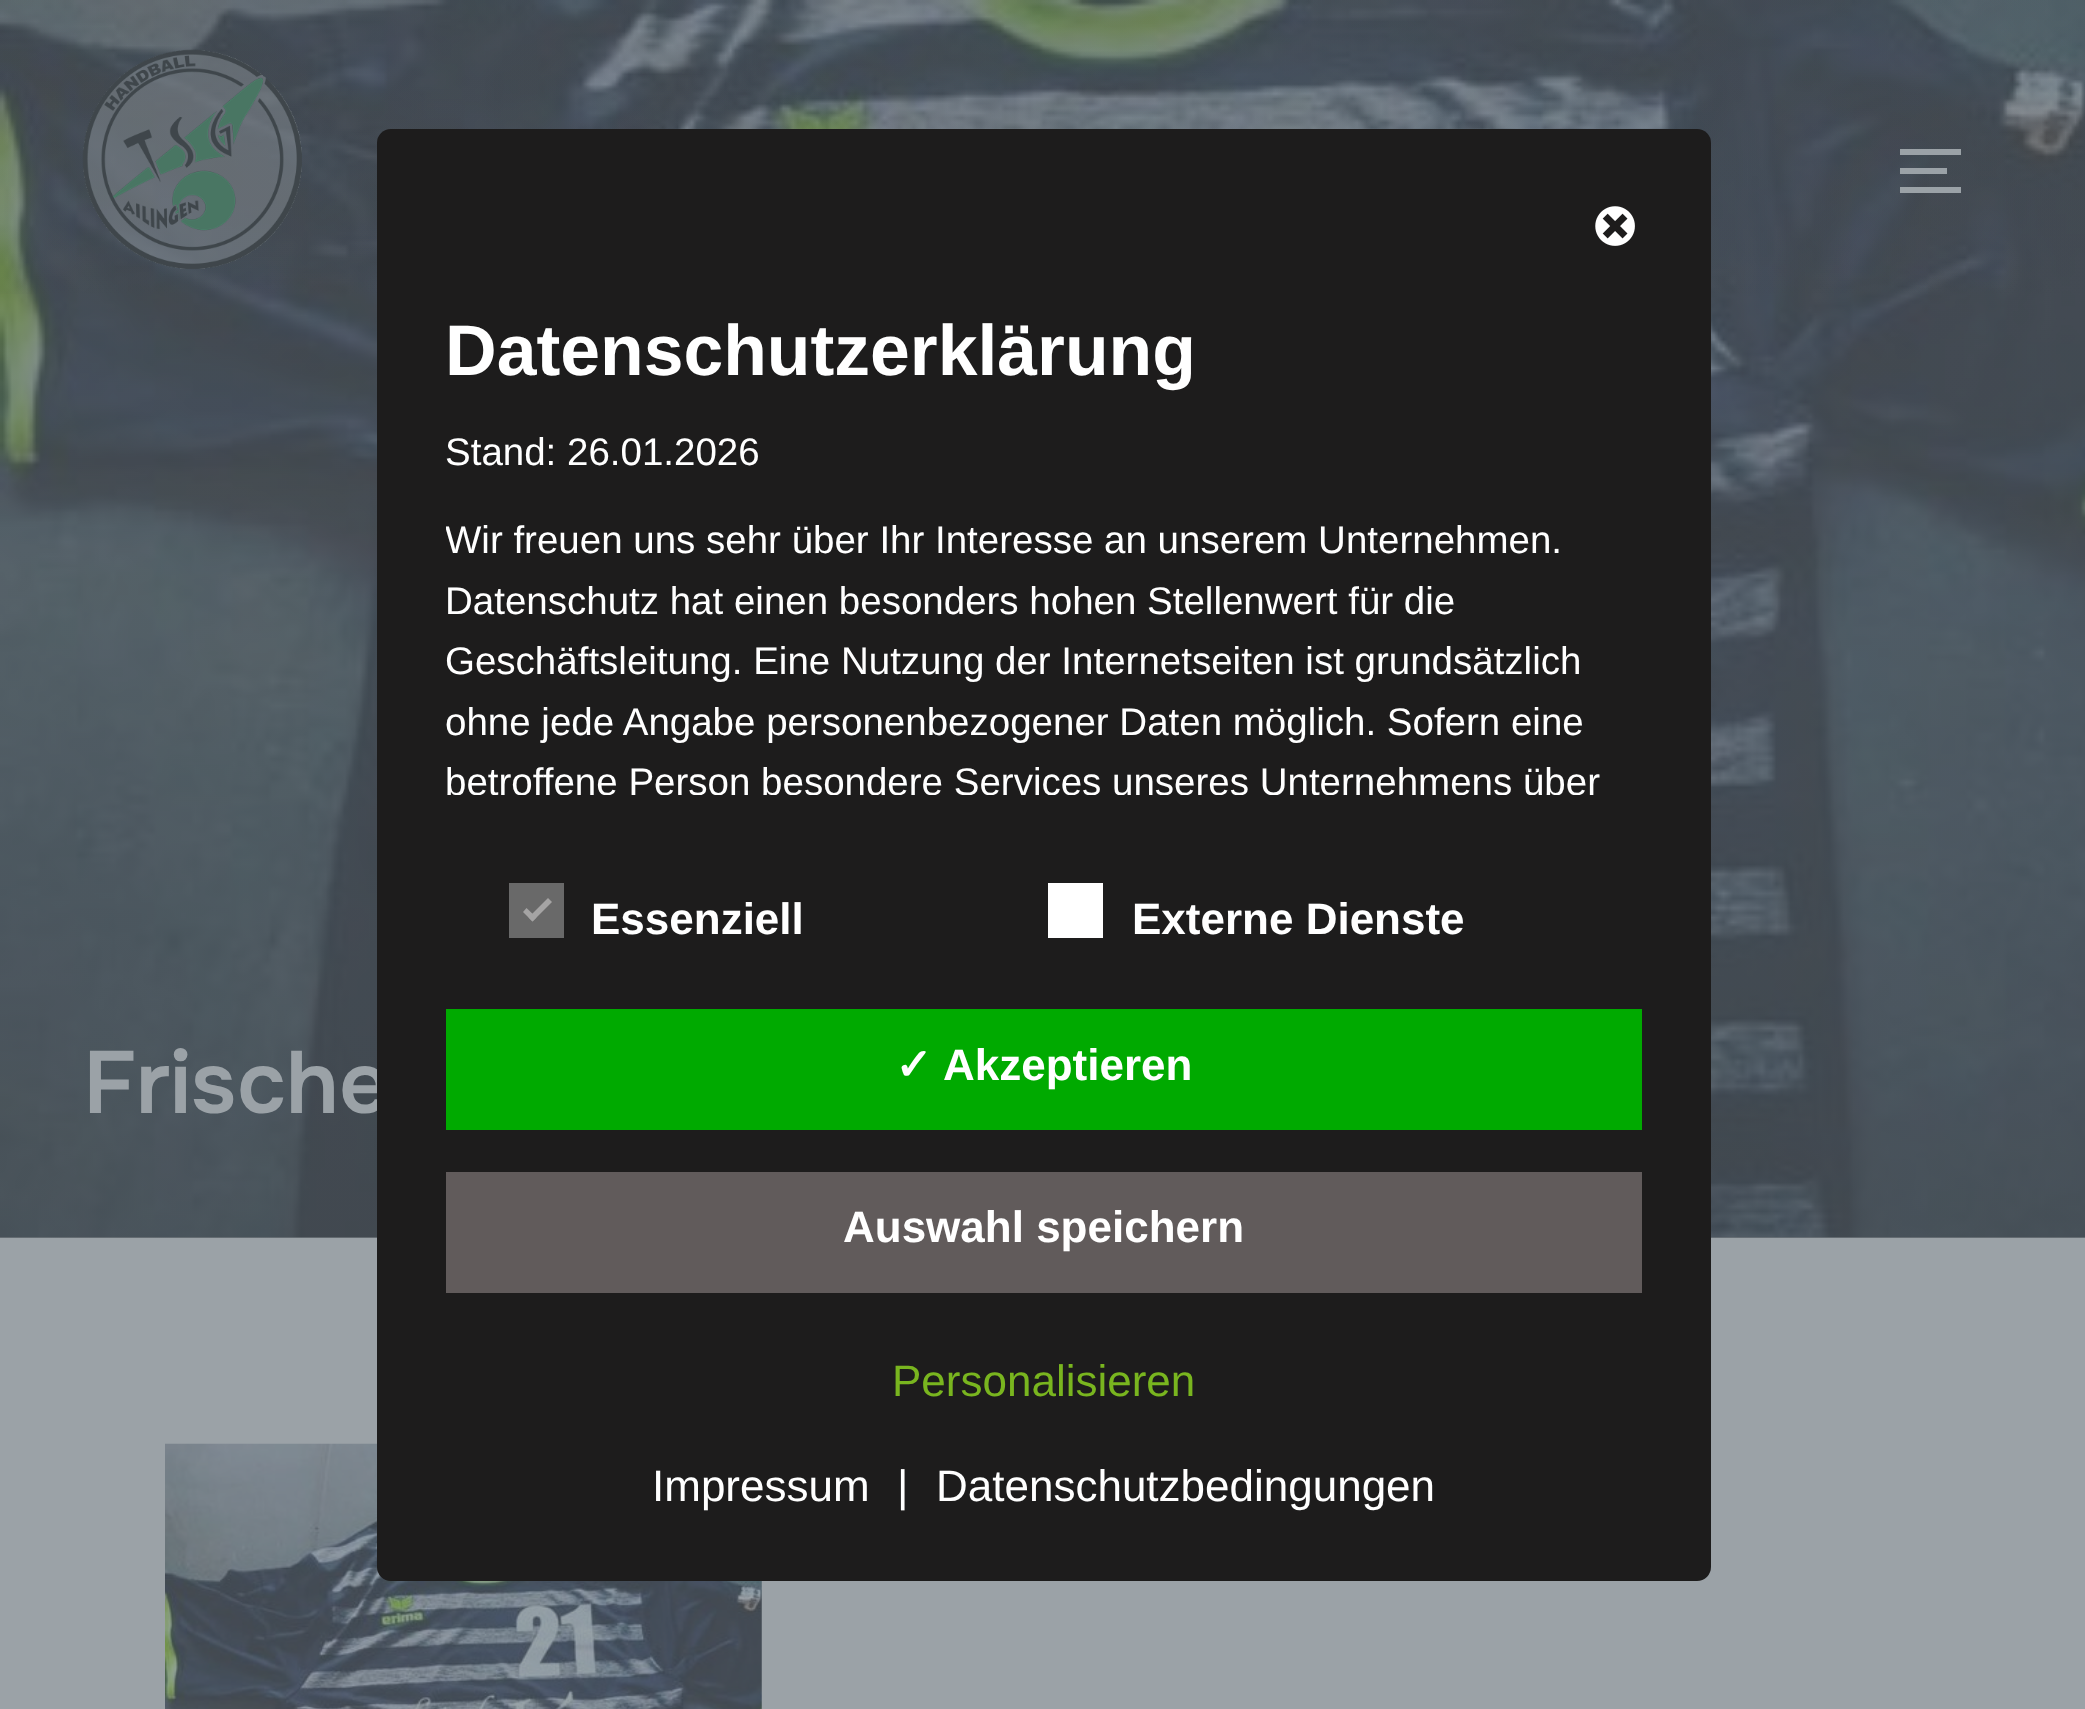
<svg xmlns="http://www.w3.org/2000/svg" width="2085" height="1709">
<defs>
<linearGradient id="g1" gradientUnits="userSpaceOnUse" x1="1044" y1="0" x2="1044" y2="1238"><stop offset="0" stop-color="#3f464b" stop-opacity="0.1"/><stop offset="1" stop-color="#3f464b" stop-opacity="0.5"/></linearGradient>
<linearGradient id="g2" gradientUnits="userSpaceOnUse" x1="1044" y1="0" x2="1044" y2="344"><stop offset="0.01" stop-color="#3f464b" stop-opacity="0.2"/><stop offset="1" stop-color="#3f464b" stop-opacity="0"/></linearGradient>
<clipPath id="clip1"><rect x="446" y="281" width="1223" height="514"/></clipPath>
</defs>
<rect width="100%" height="100%" fill="#9ba2a7"/>
<image x="0" y="0" width="2085" height="1238" href="media/2.png"/>
<rect width="2085" height="1238" fill="url(#g1)"/>
<rect width="2085" height="294" fill="url(#g2)"/>
<image x="82" y="49" width="220" height="221" href="media/1.png"/>
<rect x="1900" y="149" width="61" height="6" fill="#9ba2a7"/>
<rect x="1900" y="168" width="47" height="6" fill="#9ba2a7"/>
<rect x="1900" y="187" width="61" height="6" fill="#9ba2a7"/>
<text x="83" y="1113" style="font-family:Onest;font-size:88px;font-weight:600;fill:#9ba2a7">Frische</text>
<image x="165" y="1443" width="597" height="266" href="media/3.png"/>
<rect x="377" y="129" width="1334" height="1452" rx="14" fill="#1d1c1c"/>
<image x="1595" y="206" width="40" height="40" href="media/4.png"/>
<text x="445" y="375" style="font-family:Liberation Sans;font-size:71.5px;font-weight:bold;fill:#fff">Datenschutzerklärung</text>
<text x="445" y="465" style="font-family:Liberation Sans;font-size:38.5px;fill:#fff">Stand: 26.01.2026</text>
<g clip-path="url(#clip1)">
<text x="445" y="553" style="font-family:Liberation Sans;font-size:38.5px;fill:#fff">Wir freuen uns sehr über Ihr Interesse an unserem Unternehmen.</text>
</g>
<text x="445" y="614" style="font-family:Liberation Sans;font-size:38.5px;fill:#fff">Datenschutz hat einen besonders hohen Stellenwert für die</text>
<text x="445" y="674" style="font-family:Liberation Sans;font-size:38.5px;fill:#fff">Geschäftsleitung. Eine Nutzung der Internetseiten ist grundsätzlich</text>
<text x="445" y="735" style="font-family:Liberation Sans;font-size:38.5px;fill:#fff">ohne jede Angabe personenbezogener Daten möglich. Sofern eine</text>
<g clip-path="url(#clip1)">
<text x="445" y="795" style="font-family:Liberation Sans;font-size:38.5px;fill:#fff">betroffene Person besondere Services unseres Unternehmens über</text>
</g>
<rect x="509" y="883" width="55" height="55" fill="#696969"/>
<path d="M548 898l4 4l-19.5 19.5l-4-4z" fill="#a5a4a4"/>
<path d="M526.5 908l10 9.5l-4 4l-9.5-9.5z" fill="#a5a4a4"/>
<text x="591" y="934" style="font-family:Liberation Sans;font-size:44px;font-weight:bold;fill:#fff">Essenziell</text>
<rect x="1048" y="883" width="55" height="55" fill="#fff"/>
<text x="1132" y="934" style="font-family:Liberation Sans;font-size:44px;font-weight:bold;fill:#fff">Externe Dienste</text>
<rect x="446" y="1009" width="1196" height="121" fill="#0a0"/>
<text x="895" y="1080" style="font-family:DejaVu Sans;font-size:44px;font-weight:bold;fill:#fff">✓</text>
<text x="943" y="1080" style="font-family:Liberation Sans;font-size:44px;font-weight:bold;fill:#fff">Akzeptieren</text>
<rect x="446" y="1172" width="1196" height="121" fill="#615b5b"/>
<text x="843" y="1242" style="font-family:Liberation Sans;font-size:44px;font-weight:bold;fill:#fff">Auswahl speichern</text>
<text x="892" y="1396" style="font-family:Liberation Sans;font-size:44px;fill:#79b51f">Personalisieren</text>
<text x="652" y="1501" style="font-family:Liberation Sans;font-size:44px;fill:#fff">Impressum</text>
<text x="897" y="1501" style="font-family:Liberation Sans;font-size:44px;fill:#fff">|</text>
<text x="936" y="1501" style="font-family:Liberation Sans;font-size:44px;fill:#fff">Datenschutzbedingungen</text>
</svg>
